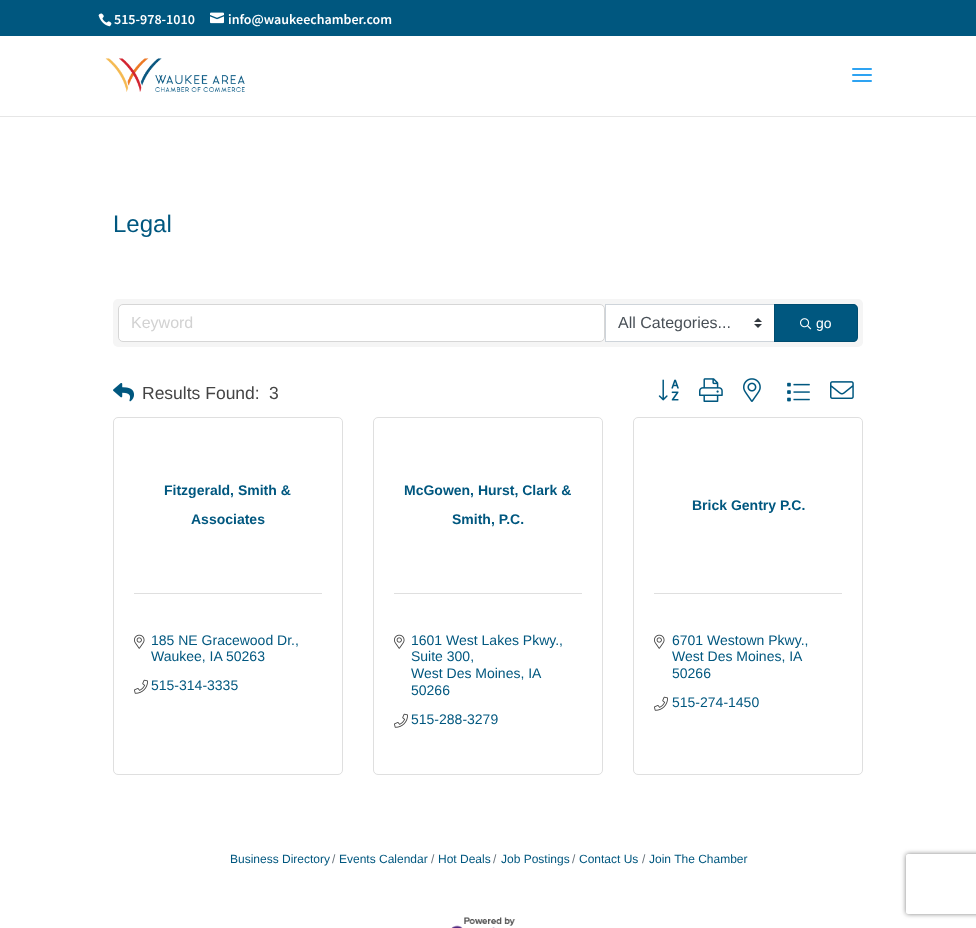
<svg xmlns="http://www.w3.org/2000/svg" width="976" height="928">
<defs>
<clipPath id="clip1"><path d="M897 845h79v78h-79zm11 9h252c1 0 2 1 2 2v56c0 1-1 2-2 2h-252c-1 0-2-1-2-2v-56c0-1 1-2 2-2z" clip-rule="evenodd"/></clipPath>
</defs>
<rect width="100%" height="100%" fill="#fff"/>
<rect width="976" height="36" fill="#00577f"/>
<image x="98" y="13" width="14" height="14" href="media/1.png"/>
<text x="114" y="24" style="font-family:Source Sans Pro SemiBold;font-size:14px;font-weight:600;fill:#fff">515-978-1010</text>
<image x="210" y="12" width="14" height="12" href="media/2.png"/>
<text x="228" y="24" style="font-family:Source Sans Pro SemiBold;font-size:14px;font-weight:600;fill:#fff">info@waukeechamber.com</text>
<rect y="116" width="976" height="1" fill="#e6e6e6"/>
<image x="105" y="58" width="140" height="34" href="media/3.png"/>
<image x="852" y="68" width="20" height="14" href="media/4.png"/>
<text x="113" y="232" style="font-family:Liberation Sans;font-size:24px;fill:#00577f">Legal</text>
<rect x="113" y="299" width="750" height="48" rx="5" fill="#f5f5f5"/>
<rect x="118.5" y="304.5" width="486" height="37" rx="4.5" fill="#fff" stroke="#d6d6d6"/>
<text x="131" y="328" style="font-family:Liberation Sans;font-size:16px;fill:#d2d2d2">Keyword</text>
<rect x="606" y="305" width="168" height="36" fill="#fff"/>
<image x="754" y="318" width="8" height="10" href="media/5.png"/>
<rect x="605.5" y="304.5" width="169" height="37" fill="none" stroke="#ced4da"/>
<text x="618" y="328" style="font-family:Liberation Sans;font-size:16px;fill:#495057">All Categories...</text>
<path d="M774 304h79c3 0 5 2 5 5v28c0 3-2 5-5 5h-79z" fill="#00577f"/>
<path d="M774.5 304.5h78.5c2.5 0 4.5 2 4.5 4.5v28c0 2.5-2 4.5-4.5 4.5h-78.5z" fill="none" stroke="#0000001f"/>
<image x="800" y="318" width="12" height="12" href="media/6.png"/>
<text x="816" y="328" style="font-family:Liberation Sans;font-size:14px;fill:#fff">go</text>
<image x="113" y="383" width="21" height="19" href="media/7.png"/>
<text x="142" y="399" style="font-family:Liberation Sans;font-size:17.5px;fill:#444">Results Found:</text>
<text x="269" y="399" style="font-family:Liberation Sans;font-size:17.5px;fill:#444">3</text>
<image x="658" y="379" width="21" height="22" href="media/8.png"/>
<image x="699" y="378" width="24" height="24" href="media/9.png"/>
<image x="743" y="378" width="18" height="24" href="media/10.png"/>
<image x="787" y="382" width="23" height="20" href="media/11.png"/>
<image x="830" y="381" width="24" height="18" href="media/12.png"/>
<rect x="113.5" y="417.5" width="229" height="357" rx="4.5" fill="none" stroke="#dfdfdf"/>
<text x="164" y="495" style="font-family:Liberation Sans;font-size:14px;font-weight:bold;fill:#00577f">Fitzgerald, Smith &amp;</text>
<text x="191" y="524" style="font-family:Liberation Sans;font-size:14px;font-weight:bold;fill:#00577f">Associates</text>
<rect x="134" y="593" width="188" height="1" fill="#dfdfdf"/>
<image x="134" y="634" width="11" height="15" href="media/13.png"/>
<text x="151" y="645" style="font-family:Liberation Sans;font-size:14px;fill:#00577f">185 NE Gracewood Dr.,</text>
<text x="151" y="661" style="font-family:Liberation Sans;font-size:14px;fill:#00577f">Waukee, IA</text>
<text x="226" y="661" style="font-family:Liberation Sans;font-size:14px;fill:#00577f">50263</text>
<image x="134" y="679" width="14" height="15" href="media/14.png"/>
<text x="151" y="690" style="font-family:Liberation Sans;font-size:14px;fill:#00577f">515-314-3335</text>
<rect x="373.5" y="417.5" width="229" height="357" rx="4.5" fill="none" stroke="#dfdfdf"/>
<text x="404" y="495" style="font-family:Liberation Sans;font-size:14px;font-weight:bold;fill:#00577f">McGowen, Hurst, Clark &amp;</text>
<text x="452" y="524" style="font-family:Liberation Sans;font-size:14px;font-weight:bold;fill:#00577f">Smith, P.C.</text>
<rect x="394" y="593" width="188" height="1" fill="#dfdfdf"/>
<image x="394" y="634" width="11" height="15" href="media/13.png"/>
<text x="411" y="645" style="font-family:Liberation Sans;font-size:14px;fill:#00577f">1601 West Lakes Pkwy.,</text>
<text x="411" y="661" style="font-family:Liberation Sans;font-size:14px;fill:#00577f">Suite 300,</text>
<text x="411" y="678" style="font-family:Liberation Sans;font-size:14px;fill:#00577f">West Des Moines, IA</text>
<text x="411" y="695" style="font-family:Liberation Sans;font-size:14px;fill:#00577f">50266</text>
<image x="394" y="713" width="14" height="15" href="media/14.png"/>
<text x="411" y="724" style="font-family:Liberation Sans;font-size:14px;fill:#00577f">515-288-3279</text>
<rect x="633.5" y="417.5" width="229" height="357" rx="4.5" fill="none" stroke="#dfdfdf"/>
<text x="692" y="510" style="font-family:Liberation Sans;font-size:14px;font-weight:bold;fill:#00577f">Brick Gentry P.C.</text>
<rect x="654" y="593" width="188" height="1" fill="#dfdfdf"/>
<image x="654" y="634" width="11" height="15" href="media/13.png"/>
<text x="672" y="645" style="font-family:Liberation Sans;font-size:14px;fill:#00577f">6701 Westown Pkwy.,</text>
<text x="672" y="661" style="font-family:Liberation Sans;font-size:14px;fill:#00577f">West Des Moines, IA</text>
<text x="672" y="678" style="font-family:Liberation Sans;font-size:14px;fill:#00577f">50266</text>
<image x="654" y="696" width="14" height="15" href="media/14.png"/>
<text x="672" y="707" style="font-family:Liberation Sans;font-size:14px;fill:#00577f">515-274-1450</text>
<text x="230" y="863" style="font-family:Liberation Sans;font-size:12px;fill:#00577f">Business Directory</text>
<text x="332" y="863" style="font-family:Liberation Sans;font-size:12px;fill:#6c757d">/</text>
<text x="339" y="863" style="font-family:Liberation Sans;font-size:12px;fill:#00577f">Events Calendar</text>
<text x="431" y="863" style="font-family:Liberation Sans;font-size:12px;fill:#6c757d">/</text>
<text x="438" y="863" style="font-family:Liberation Sans;font-size:12px;fill:#00577f">Hot Deals</text>
<text x="493" y="863" style="font-family:Liberation Sans;font-size:12px;fill:#6c757d">/</text>
<text x="501" y="863" style="font-family:Liberation Sans;font-size:12px;fill:#00577f">Job Postings</text>
<text x="572" y="863" style="font-family:Liberation Sans;font-size:12px;fill:#6c757d">/</text>
<text x="579" y="863" style="font-family:Liberation Sans;font-size:12px;fill:#00577f">Contact Us</text>
<text x="642" y="863" style="font-family:Liberation Sans;font-size:12px;fill:#6c757d">/</text>
<text x="649" y="863" style="font-family:Liberation Sans;font-size:12px;fill:#00577f">Join The Chamber</text>
<image x="451" y="917" width="65" height="11" href="media/15.png"/>
<g clip-path="url(#clip1)">
<rect x="906" y="854" width="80" height="60" rx="2" fill="#808080" filter="blur(2.5px)"/>
</g>
</svg>
